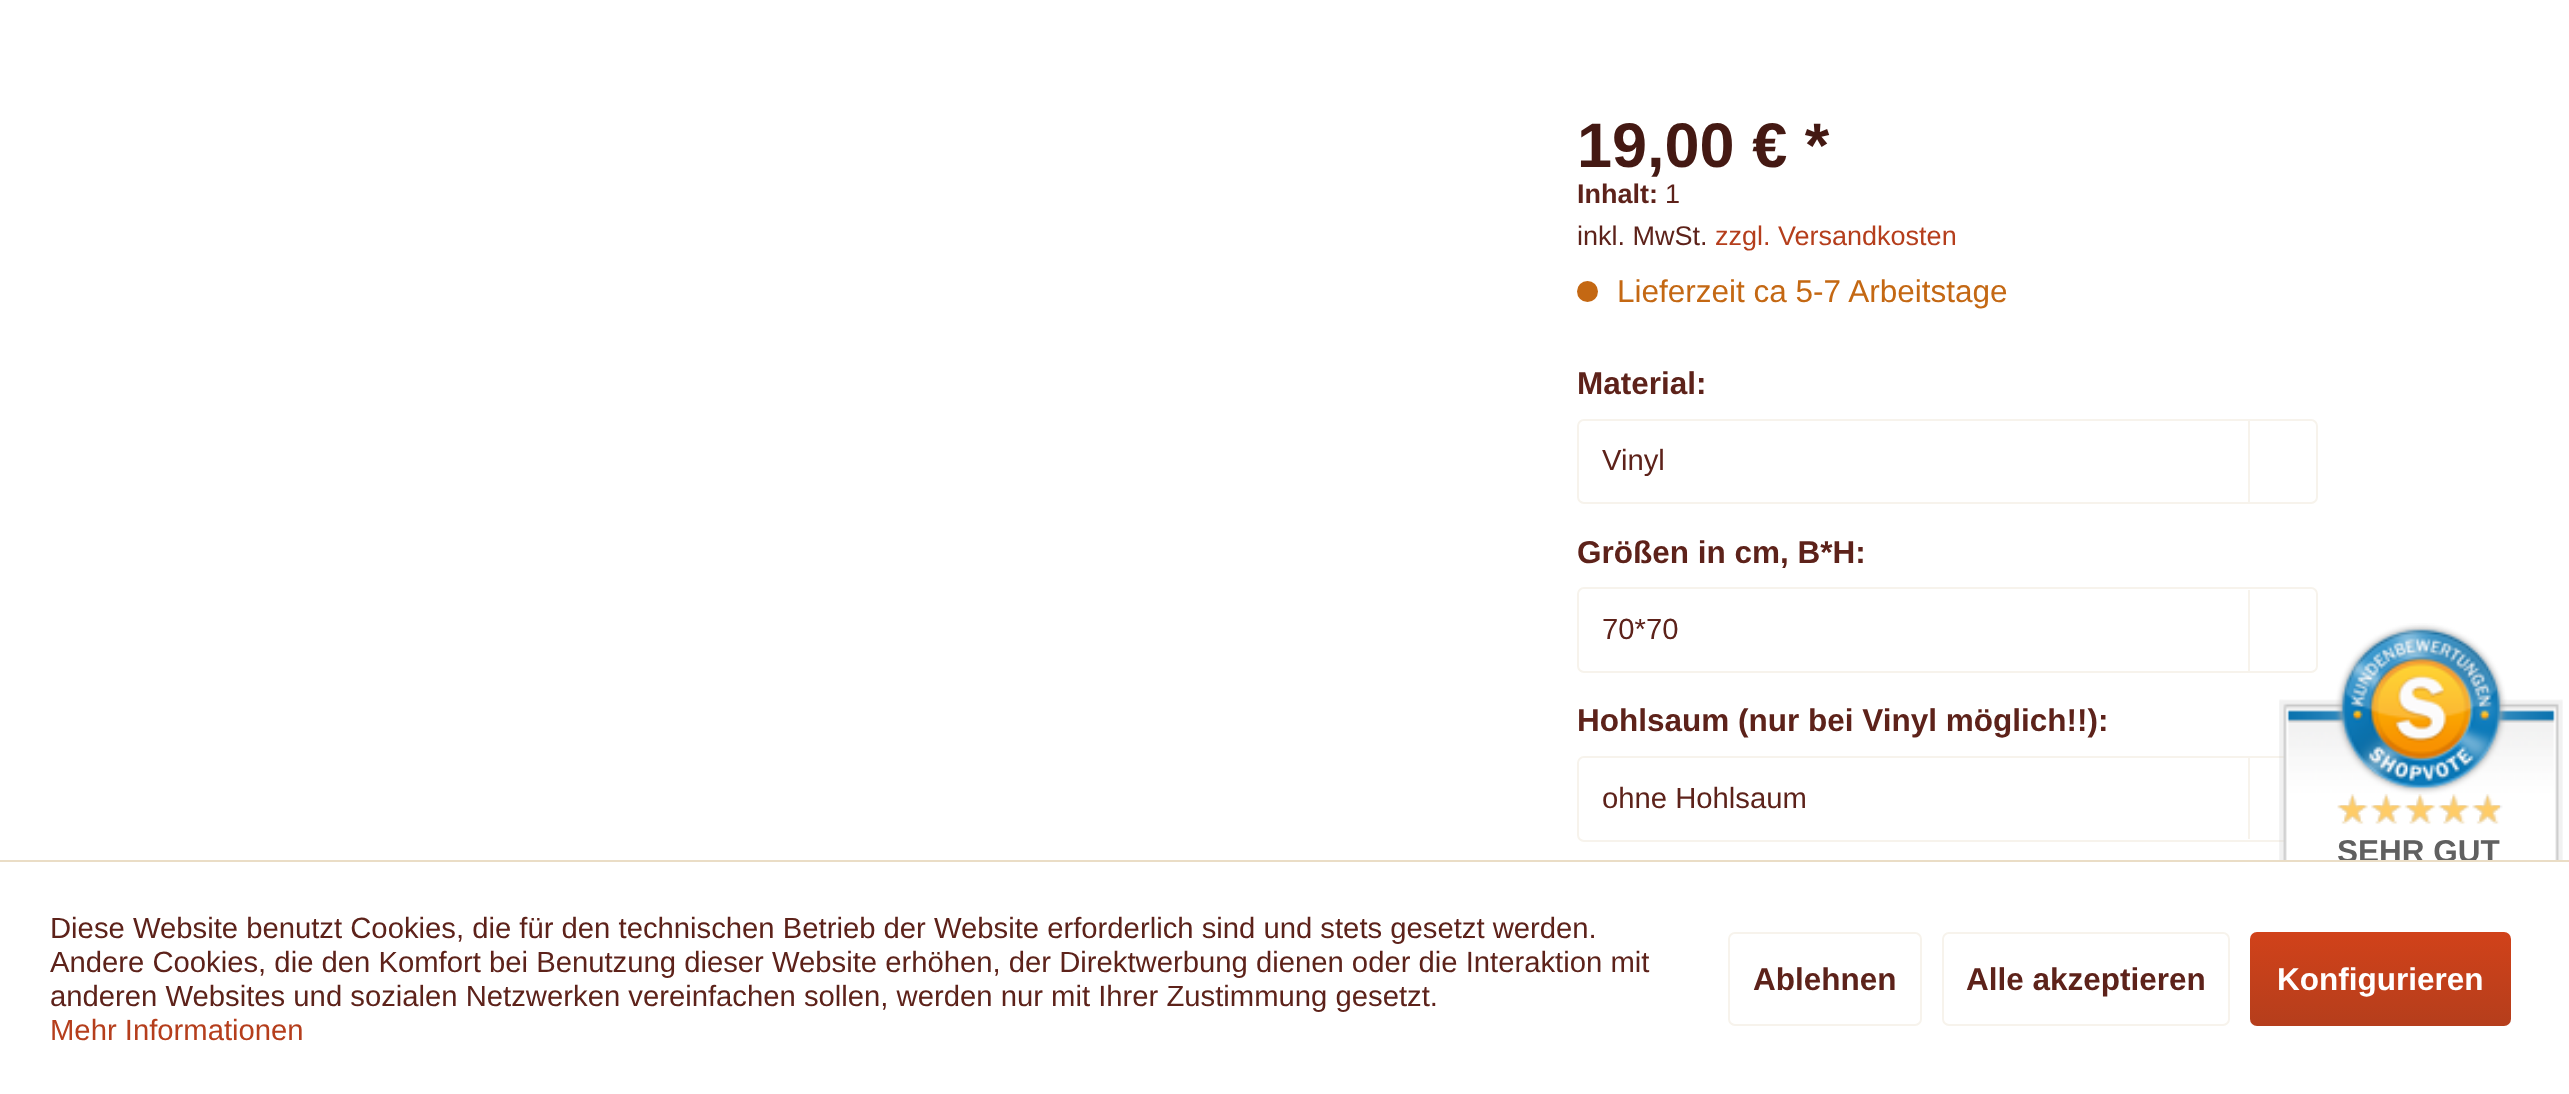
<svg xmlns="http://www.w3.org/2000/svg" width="2569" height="1094">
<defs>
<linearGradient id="g1" gradientUnits="userSpaceOnUse" x1="2381" y1="932" x2="2381" y2="1026"><stop offset="0" stop-color="#d1421a"/><stop offset="1" stop-color="#b53e1c"/></linearGradient>
</defs>
<rect width="100%" height="100%" fill="#fff"/>
<text x="1577" y="167" style="font-family:Liberation Sans;font-size:63px;font-weight:bold;fill:#441913">19,00 € *</text>
<text x="1577" y="203" style="font-family:Liberation Sans;font-size:27px;font-weight:bold;fill:#5d221a">Inhalt:</text>
<text x="1665" y="203" style="font-family:Liberation Sans;font-size:27px;fill:#5d221a">1</text>
<text x="1577" y="245" style="font-family:Liberation Sans;font-size:27px;fill:#5d221a">inkl. MwSt.</text>
<text x="1715" y="245" style="font-family:Liberation Sans;font-size:27px;fill:#b53e1c">zzgl. Versandkosten</text>
<circle cx="1587.5" cy="291.5" r="10.5" fill="#c46813"/>
<text x="1617" y="302" style="font-family:Liberation Sans;font-size:31.5px;fill:#c46813">Lieferzeit ca 5-7 Arbeitstage</text>
<text x="1577" y="394" style="font-family:Liberation Sans;font-size:31.5px;font-weight:bold;fill:#5d221a">Material:</text>
<rect x="1578" y="420" width="739" height="83" rx="6" fill="none" stroke="#f7f3ec" stroke-width="2"/>
<text x="1602" y="470" style="font-family:Liberation Sans;font-size:29.25px;fill:#5d221a">Vinyl</text>
<rect x="2248" y="421" width="2" height="81" fill="#f7f3ec"/>
<text x="1577" y="563" style="font-family:Liberation Sans;font-size:31.5px;font-weight:bold;fill:#5d221a">Größen in cm, B*H:</text>
<rect x="1578" y="588" width="739" height="84" rx="6" fill="none" stroke="#f7f3ec" stroke-width="2"/>
<text x="1602" y="639" style="font-family:Liberation Sans;font-size:29.25px;fill:#5d221a">70*70</text>
<rect x="2248" y="590" width="2" height="81" fill="#f7f3ec"/>
<text x="1577" y="731" style="font-family:Liberation Sans;font-size:31.5px;font-weight:bold;fill:#5d221a">Hohlsaum (nur bei Vinyl möglich!!):</text>
<rect x="1578" y="757" width="739" height="84" rx="6" fill="none" stroke="#f7f3ec" stroke-width="2"/>
<text x="1602" y="808" style="font-family:Liberation Sans;font-size:29.25px;fill:#5d221a">ohne Hohlsaum</text>
<rect x="2248" y="758" width="2" height="81" fill="#f7f3ec"/>
<image x="2279" y="623" width="284" height="237" href="media/1.png"/>
<image x="2337" y="794" width="163" height="30" href="media/2.png"/>
<text x="2337" y="862" style="font-family:Liberation Sans;font-size:31.5px;font-weight:bold;fill:#606060">SEHR GUT</text>
<rect x="2344" y="862" width="128" height="1" fill="#fff"/>
<rect y="860" width="2569" height="2" fill="#eaddc6"/>
<text x="50" y="938" style="font-family:Liberation Sans;font-size:29.25px;fill:#5d221a">Diese Website benutzt Cookies, die für den technischen Betrieb der Website erforderlich sind und stets gesetzt werden.</text>
<text x="50" y="972" style="font-family:Liberation Sans;font-size:29.25px;fill:#5d221a">Andere Cookies, die den Komfort bei Benutzung dieser Website erhöhen, der Direktwerbung dienen oder die Interaktion mit</text>
<text x="50" y="1006" style="font-family:Liberation Sans;font-size:29.25px;fill:#5d221a">anderen Websites und sozialen Netzwerken vereinfachen sollen, werden nur mit Ihrer Zustimmung gesetzt.</text>
<text x="50" y="1040" style="font-family:Liberation Sans;font-size:29.25px;fill:#b53e1c">Mehr Informationen</text>
<rect x="1729" y="933" width="192" height="92" rx="6" fill="none" stroke="#f7f3ec" stroke-width="2"/>
<text x="1753" y="990" style="font-family:Liberation Sans;font-size:31.5px;font-weight:bold;fill:#5d221a">Ablehnen</text>
<rect x="1943" y="933" width="286" height="92" rx="6" fill="none" stroke="#f7f3ec" stroke-width="2"/>
<text x="1966" y="990" style="font-family:Liberation Sans;font-size:31.5px;font-weight:bold;fill:#5d221a">Alle akzeptieren</text>
<rect x="2250" y="932" width="261" height="94" rx="7" fill="url(#g1)"/>
<text x="2277" y="990" style="font-family:Liberation Sans;font-size:31.5px;font-weight:bold;fill:#fff">Konfigurieren</text>
</svg>
